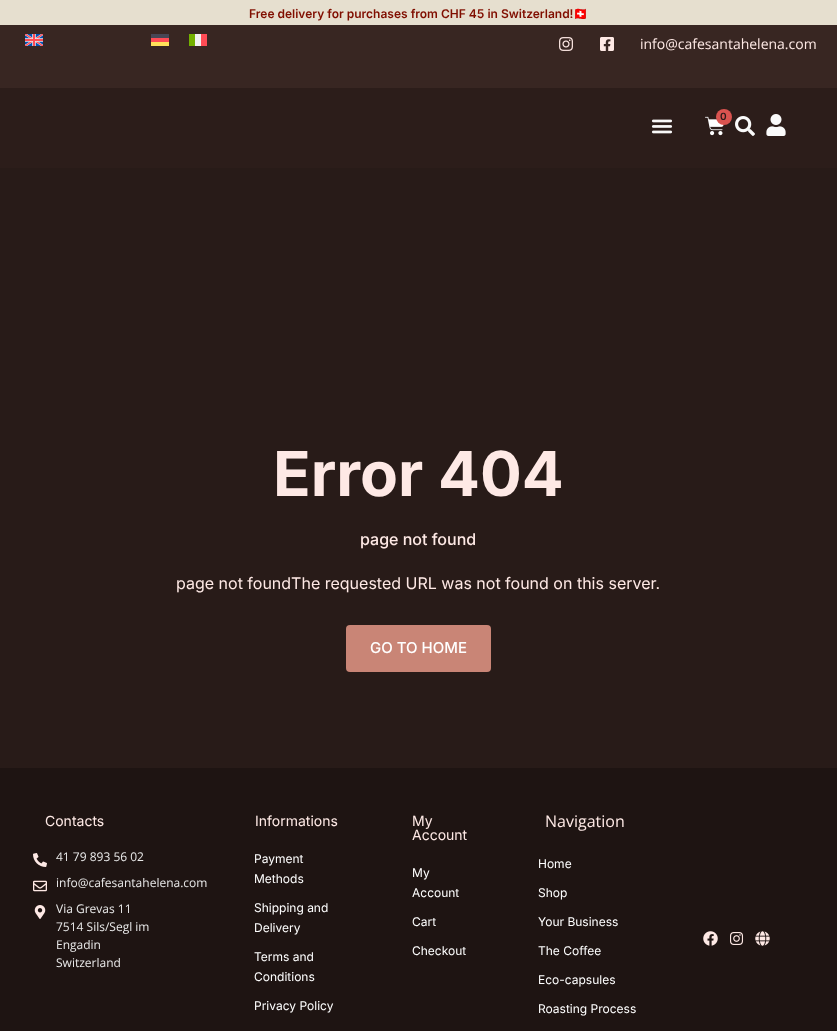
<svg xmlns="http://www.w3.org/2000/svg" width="837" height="1031">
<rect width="100%" height="100%" fill="#281b18"/>
<rect width="837" height="25" fill="#e6dfcf"/>
<text x="249" y="18" style="font-family:Inter;font-size:12px;font-weight:600;fill:#800e00">Free delivery for purchases from CHF 45 in Switzerland!</text>
<text x="573" y="18" style="font-family:Noto Color Emoji;font-size:12px;font-weight:bold;fill:#800e00">🇨🇭</text>
<rect y="25" width="837" height="63" fill="#382622"/>
<image x="25" y="34" width="18" height="12" href="media/1.png"/>
<rect x="151" y="34" width="18" height="4" fill="#464655"/>
<rect x="151" y="38" width="18" height="4" fill="#ff4b55"/>
<rect x="151" y="42" width="18" height="4" fill="#ffe15a"/>
<rect x="189" y="34" width="6" height="12" fill="#73af00"/>
<rect x="195" y="34" width="6" height="12" fill="#f0f0f0"/>
<rect x="201" y="34" width="6" height="12" fill="#ff4b55"/>
<image x="559" y="37" width="14" height="14" href="media/2.png"/>
<image x="600" y="37" width="14" height="14" href="media/3.png"/>
<text x="640" y="49" style="font-family:Open Sans;font-size:14px;fill:#fee9e5">info@cafesantahelena.com</text>
<rect y="88" width="837" height="80" fill="#2c1d1a"/>
<image x="705" y="116" width="19" height="20" href="media/4.png"/>
<circle cx="724" cy="117" r="8" fill="#d9534f"/>
<text x="720" y="120" style="font-family:Inter;font-size:10px;font-weight:600;fill:#281b18">0</text>
<image x="735" y="116" width="20" height="20" href="media/5.png"/>
<image x="766" y="114" width="20" height="22" href="media/6.png"/>
<image x="651" y="119" width="22" height="15" href="media/7.png"/>
<text x="273" y="496" style="font-family:Inter;font-size:62px;font-weight:bold;fill:#fee9e5">Error 404</text>
<text x="360" y="545" style="font-family:Inter;font-size:16px;font-weight:500;fill:#fee9e5">page not found</text>
<text x="176" y="589" style="font-family:Inter;font-size:16px;fill:#fee9e5">page not foundThe requested URL was not found on this server.</text>
<rect x="346" y="625" width="145" height="47" rx="4" fill="#c98576"/>
<text x="370" y="653" style="font-family:Inter;font-size:15px;font-weight:500;fill:#fff">GO TO HOME</text>
<rect y="768" width="837" height="263" fill="#1e1412"/>
<text x="45" y="826" style="font-family:Inter;font-size:14px;fill:#fee9e5">Contacts</text>
<image x="33" y="853" width="14" height="14" href="media/8.png"/>
<text x="56" y="861" style="font-family:Open Sans;font-size:12px;fill:#e9e9e9">41 79 893 56 02</text>
<image x="33" y="880" width="14" height="12" href="media/9.png"/>
<text x="56" y="887" style="font-family:Open Sans;font-size:12px;fill:#e9e9e9">info@cafesantahelena.com</text>
<image x="34" y="905" width="12" height="14" href="media/10.png"/>
<text x="56" y="913" style="font-family:Open Sans;font-size:12px;fill:#e9e9e9">Via Grevas 11</text>
<text x="56" y="931" style="font-family:Open Sans;font-size:12px;fill:#e9e9e9">7514 Sils/Segl im</text>
<text x="56" y="949" style="font-family:Open Sans;font-size:12px;fill:#e9e9e9">Engadin</text>
<text x="56" y="967" style="font-family:Open Sans;font-size:12px;fill:#e9e9e9">Switzerland</text>
<text x="255" y="826" style="font-family:Inter;font-size:14px;fill:#fee9e5">Informations</text>
<text x="254" y="863" style="font-family:Inter;font-size:12px;fill:#fff">Payment</text>
<text x="254" y="883" style="font-family:Inter;font-size:12px;fill:#fff">Methods</text>
<text x="254" y="912" style="font-family:Inter;font-size:12px;fill:#fff">Shipping and</text>
<text x="254" y="932" style="font-family:Inter;font-size:12px;fill:#fff">Delivery</text>
<text x="254" y="961" style="font-family:Inter;font-size:12px;fill:#fff">Terms and</text>
<text x="254" y="981" style="font-family:Inter;font-size:12px;fill:#fff">Conditions</text>
<text x="254" y="1010" style="font-family:Inter;font-size:12px;fill:#fff">Privacy Policy</text>
<text x="412" y="826" style="font-family:Inter;font-size:14px;fill:#fee9e5">My</text>
<text x="412" y="840" style="font-family:Inter;font-size:14px;fill:#fee9e5">Account</text>
<text x="412" y="877" style="font-family:Inter;font-size:12px;fill:#fff">My</text>
<text x="412" y="897" style="font-family:Inter;font-size:12px;fill:#fff">Account</text>
<text x="412" y="926" style="font-family:Inter;font-size:12px;fill:#fff">Cart</text>
<text x="412" y="955" style="font-family:Inter;font-size:12px;fill:#fff">Checkout</text>
<text x="545" y="827" style="font-family:Open Sans;font-size:16px;fill:#fee9e5">Navigation</text>
<text x="538" y="868" style="font-family:Inter;font-size:12px;fill:#fff">Home</text>
<text x="538" y="897" style="font-family:Inter;font-size:12px;fill:#fff">Shop</text>
<text x="538" y="926" style="font-family:Inter;font-size:12px;fill:#fff">Your Business</text>
<text x="538" y="955" style="font-family:Inter;font-size:12px;fill:#fff">The Coffee</text>
<text x="538" y="984" style="font-family:Inter;font-size:12px;fill:#fff">Eco-capsules</text>
<text x="538" y="1013" style="font-family:Inter;font-size:12px;fill:#fff">Roasting Process</text>
<image x="703" y="931" width="15" height="15" href="media/11.png"/>
<image x="730" y="932" width="14" height="13" href="media/12.png"/>
<image x="755" y="931" width="15" height="15" href="media/13.png"/>
</svg>
